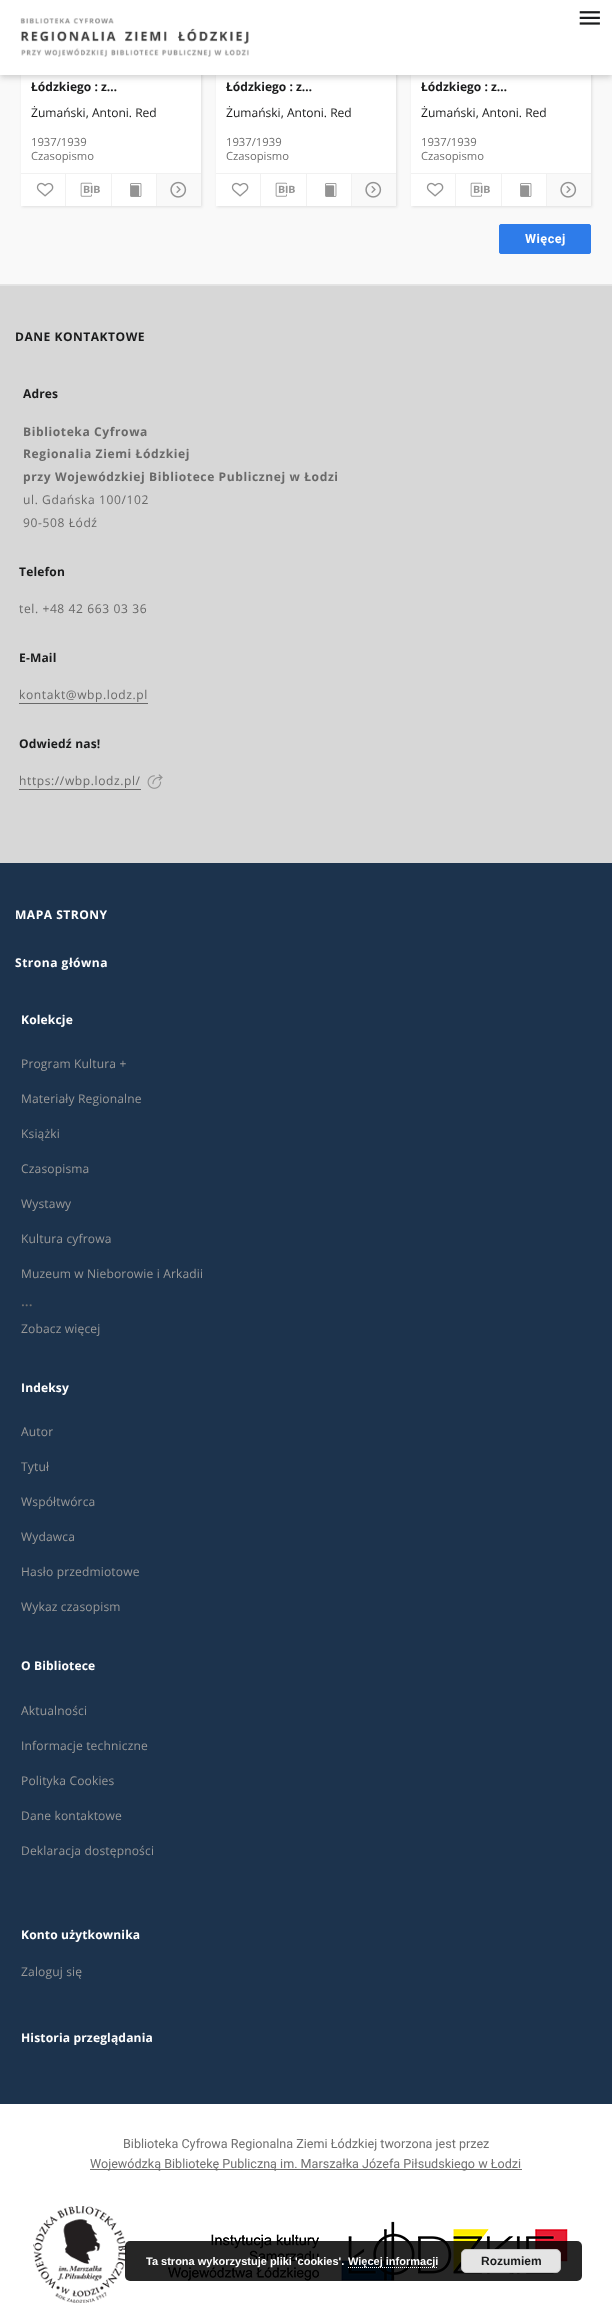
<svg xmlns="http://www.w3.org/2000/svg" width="612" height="2311">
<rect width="100%" height="100%" fill="#f9f9f9"/>
<rect x="22" y="-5" width="180" height="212" fill="#dedede" filter="blur(1.5px)"/>
<rect x="21" y="75" width="180" height="131" fill="#fff"/>
<rect x="217" y="-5" width="180" height="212" fill="#dedede" filter="blur(1.5px)"/>
<rect x="216" y="75" width="180" height="131" fill="#fff"/>
<rect x="412" y="-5" width="180" height="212" fill="#dedede" filter="blur(1.5px)"/>
<rect x="411" y="75" width="180" height="131" fill="#fff"/>
<rect y="1" width="612" height="75" fill="#00000014" filter="blur(5px)"/>
<rect y="4" width="612" height="75" fill="#0000000f" filter="blur(2.5px)"/>
<rect x="1" y="3" width="610" height="73" fill="#0000000f" filter="blur(2px)"/>
<rect width="612" height="75" fill="#fff"/>
<image x="20" y="18" width="229" height="39" href="media/1.png"/>
<image x="579" y="11" width="21" height="14" href="media/2.png"/>
<rect y="284" width="612" height="2" fill="#e4e4e4"/>
<text x="31" y="91" style="font-family:Open Sans;font-size:12.05px;font-weight:bold;fill:#1a1b1c">Łódzkiego : z…</text>
<text x="31" y="117" style="font-family:Open Sans;font-size:12.05px;fill:#1a1b1c">Żumański, Antoni. Red</text>
<text x="31" y="146" style="font-family:Open Sans;font-size:11.25px;fill:#707070">1937/1939</text>
<text x="31" y="160" style="font-family:Open Sans;font-size:11.25px;fill:#707070">Czasopismo</text>
<rect x="21" y="173" width="180" height="1" fill="#f1f1f1"/>
<rect x="65" y="174" width="1" height="32" fill="#f1f1f1"/>
<image x="36" y="182" width="18" height="15" href="media/3.png"/>
<rect x="111" y="174" width="1" height="32" fill="#f1f1f1"/>
<image x="80" y="182" width="20" height="15" href="media/4.png"/>
<rect x="156" y="174" width="1" height="32" fill="#f1f1f1"/>
<image x="130" y="183" width="12" height="14" href="media/5.png"/>
<rect x="157" y="174" width="44" height="32" fill="#f9f9f9"/>
<image x="170" y="181" width="17" height="17" href="media/6.png"/>
<text x="226" y="91" style="font-family:Open Sans;font-size:12.05px;font-weight:bold;fill:#1a1b1c">Łódzkiego : z…</text>
<text x="226" y="117" style="font-family:Open Sans;font-size:12.05px;fill:#1a1b1c">Żumański, Antoni. Red</text>
<text x="226" y="146" style="font-family:Open Sans;font-size:11.25px;fill:#707070">1937/1939</text>
<text x="226" y="160" style="font-family:Open Sans;font-size:11.25px;fill:#707070">Czasopismo</text>
<rect x="216" y="173" width="180" height="1" fill="#f1f1f1"/>
<rect x="260" y="174" width="1" height="32" fill="#f1f1f1"/>
<image x="231" y="182" width="18" height="15" href="media/3.png"/>
<rect x="306" y="174" width="1" height="32" fill="#f1f1f1"/>
<image x="275" y="182" width="20" height="15" href="media/4.png"/>
<rect x="351" y="174" width="1" height="32" fill="#f1f1f1"/>
<image x="325" y="183" width="12" height="14" href="media/5.png"/>
<rect x="352" y="174" width="44" height="32" fill="#f9f9f9"/>
<image x="365" y="181" width="17" height="17" href="media/6.png"/>
<text x="421" y="91" style="font-family:Open Sans;font-size:12.05px;font-weight:bold;fill:#1a1b1c">Łódzkiego : z…</text>
<text x="421" y="117" style="font-family:Open Sans;font-size:12.05px;fill:#1a1b1c">Żumański, Antoni. Red</text>
<text x="421" y="146" style="font-family:Open Sans;font-size:11.25px;fill:#707070">1937/1939</text>
<text x="421" y="160" style="font-family:Open Sans;font-size:11.25px;fill:#707070">Czasopismo</text>
<rect x="411" y="173" width="180" height="1" fill="#f1f1f1"/>
<rect x="455" y="174" width="1" height="32" fill="#f1f1f1"/>
<image x="426" y="182" width="18" height="15" href="media/3.png"/>
<rect x="501" y="174" width="1" height="32" fill="#f1f1f1"/>
<image x="470" y="182" width="20" height="15" href="media/4.png"/>
<rect x="546" y="174" width="1" height="32" fill="#f1f1f1"/>
<image x="520" y="183" width="12" height="14" href="media/5.png"/>
<rect x="547" y="174" width="44" height="32" fill="#f9f9f9"/>
<image x="560" y="181" width="17" height="17" href="media/6.png"/>
<rect x="499.5" y="224.5" width="91" height="29" rx="1.5" fill="#2e7cea" stroke="#2e7cea"/>
<text x="525" y="243" style="font-family:Roboto;font-size:12.6px;font-weight:bold;letter-spacing:0.5px;fill:#fff">Więcej</text>
<rect y="286" width="612" height="577" fill="#d7d7d7"/>
<text x="15" y="341" style="font-family:Open Sans;font-size:12.05px;font-weight:bold;letter-spacing:0.5px;fill:#1a1b1c">DANE KONTAKTOWE</text>
<text x="23" y="398" style="font-family:Open Sans;font-size:12.05px;font-weight:bold;letter-spacing:0.15px;fill:#1a1b1c">Adres</text>
<text x="23" y="436" style="font-family:Open Sans;font-size:12.05px;font-weight:bold;letter-spacing:0.6px;fill:#696969">Biblioteka Cyfrowa</text>
<text x="23" y="458" style="font-family:Open Sans;font-size:12.05px;font-weight:bold;letter-spacing:0.6px;fill:#696969">Regionalia Ziemi Łódzkiej</text>
<text x="23" y="481" style="font-family:Open Sans;font-size:12.05px;font-weight:bold;letter-spacing:0.6px;fill:#696969">przy Wojewódzkiej Bibliotece Publicznej w Łodzi</text>
<text x="23" y="504" style="font-family:Open Sans;font-size:12.05px;letter-spacing:0.6px;fill:#696969">ul. Gdańska 100/102</text>
<text x="23" y="527" style="font-family:Open Sans;font-size:12.05px;letter-spacing:0.6px;fill:#696969">90-508 Łódź</text>
<text x="19" y="576" style="font-family:Open Sans;font-size:12.05px;font-weight:bold;letter-spacing:0.15px;fill:#1a1b1c">Telefon</text>
<text x="19" y="613" style="font-family:Open Sans;font-size:12.05px;letter-spacing:0.6px;fill:#696969">tel. +48 42 663 03 36</text>
<text x="19" y="662" style="font-family:Open Sans;font-size:12.05px;font-weight:bold;letter-spacing:0.15px;fill:#1a1b1c">E-Mail</text>
<text x="19" y="699" style="font-family:Open Sans;font-size:12.05px;letter-spacing:0.6px;fill:#696969">kontakt@wbp.lodz.pl</text>
<rect x="19" y="703" width="129" height="1" fill="#696969"/>
<text x="19" y="748" style="font-family:Open Sans;font-size:12.05px;font-weight:bold;letter-spacing:0.15px;fill:#1a1b1c">Odwiedź nas!</text>
<text x="19" y="785" style="font-family:Open Sans;font-size:12.05px;letter-spacing:0.6px;fill:#696969">https://wbp.lodz.pl/</text>
<rect x="19" y="789" width="122" height="1" fill="#696969"/>
<image x="147" y="774" width="16" height="15" href="media/7.png"/>
<rect y="863" width="612" height="1241" fill="#1c334d"/>
<text x="15" y="919" style="font-family:Open Sans;font-size:12.05px;font-weight:bold;letter-spacing:0.5px;fill:#fff">MAPA STRONY</text>
<text x="15" y="967" style="font-family:Open Sans;font-size:12.05px;font-weight:bold;letter-spacing:0.5px;fill:#fff">Strona główna</text>
<text x="21" y="1024" style="font-family:Open Sans;font-size:12.05px;font-weight:bold;letter-spacing:0.15px;fill:#fff">Kolekcje</text>
<text x="21" y="1068" style="font-family:Open Sans;font-size:12.05px;letter-spacing:0.15px;fill:#999">Program Kultura +</text>
<text x="21" y="1103" style="font-family:Open Sans;font-size:12.05px;letter-spacing:0.15px;fill:#999">Materiały Regionalne</text>
<text x="21" y="1138" style="font-family:Open Sans;font-size:12.05px;letter-spacing:0.15px;fill:#999">Książki</text>
<text x="21" y="1173" style="font-family:Open Sans;font-size:12.05px;letter-spacing:0.15px;fill:#999">Czasopisma</text>
<text x="21" y="1208" style="font-family:Open Sans;font-size:12.05px;letter-spacing:0.15px;fill:#999">Wystawy</text>
<text x="21" y="1243" style="font-family:Open Sans;font-size:12.05px;letter-spacing:0.15px;fill:#999">Kultura cyfrowa</text>
<text x="21" y="1278" style="font-family:Open Sans;font-size:12.05px;letter-spacing:0.15px;fill:#999">Muzeum w Nieborowie i Arkadii</text>
<text x="21" y="1306" style="font-family:Open Sans;font-size:14px;font-weight:600;fill:#707070">...</text>
<text x="21" y="1333" style="font-family:Open Sans;font-size:12.05px;letter-spacing:0.15px;fill:#999">Zobacz więcej</text>
<text x="21" y="1392" style="font-family:Open Sans;font-size:12.05px;font-weight:bold;letter-spacing:0.15px;fill:#fff">Indeksy</text>
<text x="21" y="1436" style="font-family:Open Sans;font-size:12.05px;letter-spacing:0.15px;fill:#999">Autor</text>
<text x="21" y="1471" style="font-family:Open Sans;font-size:12.05px;letter-spacing:0.15px;fill:#999">Tytuł</text>
<text x="21" y="1506" style="font-family:Open Sans;font-size:12.05px;letter-spacing:0.15px;fill:#999">Współtwórca</text>
<text x="21" y="1541" style="font-family:Open Sans;font-size:12.05px;letter-spacing:0.15px;fill:#999">Wydawca</text>
<text x="21" y="1576" style="font-family:Open Sans;font-size:12.05px;letter-spacing:0.15px;fill:#999">Hasło przedmiotowe</text>
<text x="21" y="1611" style="font-family:Open Sans;font-size:12.05px;letter-spacing:0.15px;fill:#999">Wykaz czasopism</text>
<text x="21" y="1670" style="font-family:Open Sans;font-size:12.05px;font-weight:bold;letter-spacing:0.15px;fill:#fff">O Bibliotece</text>
<text x="21" y="1715" style="font-family:Open Sans;font-size:12.05px;letter-spacing:0.15px;fill:#999">Aktualności</text>
<text x="21" y="1750" style="font-family:Open Sans;font-size:12.05px;letter-spacing:0.15px;fill:#999">Informacje techniczne</text>
<text x="21" y="1785" style="font-family:Open Sans;font-size:12.05px;letter-spacing:0.15px;fill:#999">Polityka Cookies</text>
<text x="21" y="1820" style="font-family:Open Sans;font-size:12.05px;letter-spacing:0.15px;fill:#999">Dane kontaktowe</text>
<text x="21" y="1855" style="font-family:Open Sans;font-size:12.05px;letter-spacing:0.15px;fill:#999">Deklaracja dostępności</text>
<text x="21" y="1939" style="font-family:Open Sans;font-size:12.05px;font-weight:bold;letter-spacing:0.15px;fill:#fff">Konto użytkownika</text>
<text x="21" y="1976" style="font-family:Open Sans;font-size:12.05px;letter-spacing:0.15px;fill:#999">Zaloguj się</text>
<text x="21" y="2042" style="font-family:Open Sans;font-size:12.05px;font-weight:bold;letter-spacing:0.15px;fill:#fff">Historia przeglądania</text>
<rect y="2104" width="612" height="207" fill="#fff"/>
<text x="123" y="2148" style="font-family:Roboto;font-size:12.6px;fill:#707070">Biblioteka Cyfrowa Regionalna Ziemi Łódzkiej tworzona jest przez</text>
<rect x="90" y="2169" width="432" height="1" fill="#6d6d6d"/>
<text x="90" y="2168" style="font-family:Roboto;font-size:12.6px;fill:#707070">Wojewódzką Bibliotekę Publiczną im. Marszałka Józefa Piłsudskiego w Łodzi</text>
<image x="33" y="2206" width="535" height="97" href="media/8.png"/>
<rect x="125" y="2241" width="457" height="40" rx="5" fill="#000000d9"/>
<text x="146" y="2265" style="font-family:Liberation Sans;font-size:11px;font-weight:bold;fill:#fff">Ta strona wykorzystuje pliki 'cookies'.</text>
<path d="M348 2267.5h90" fill="none" stroke="#fff" stroke-dasharray="1 1"/>
<text x="348" y="2265" style="font-family:Liberation Sans;font-size:11px;font-weight:bold;fill:#fff">Więcej informacji</text>
<rect x="461.5" y="2249.5" width="99" height="23" rx="4.5" fill="#e4e4e4" stroke="#c1c1c1"/>
<text x="481" y="2265" style="font-family:Liberation Sans;font-size:12px;font-weight:bold;fill:#1a1b1c">Rozumiem</text>
</svg>
